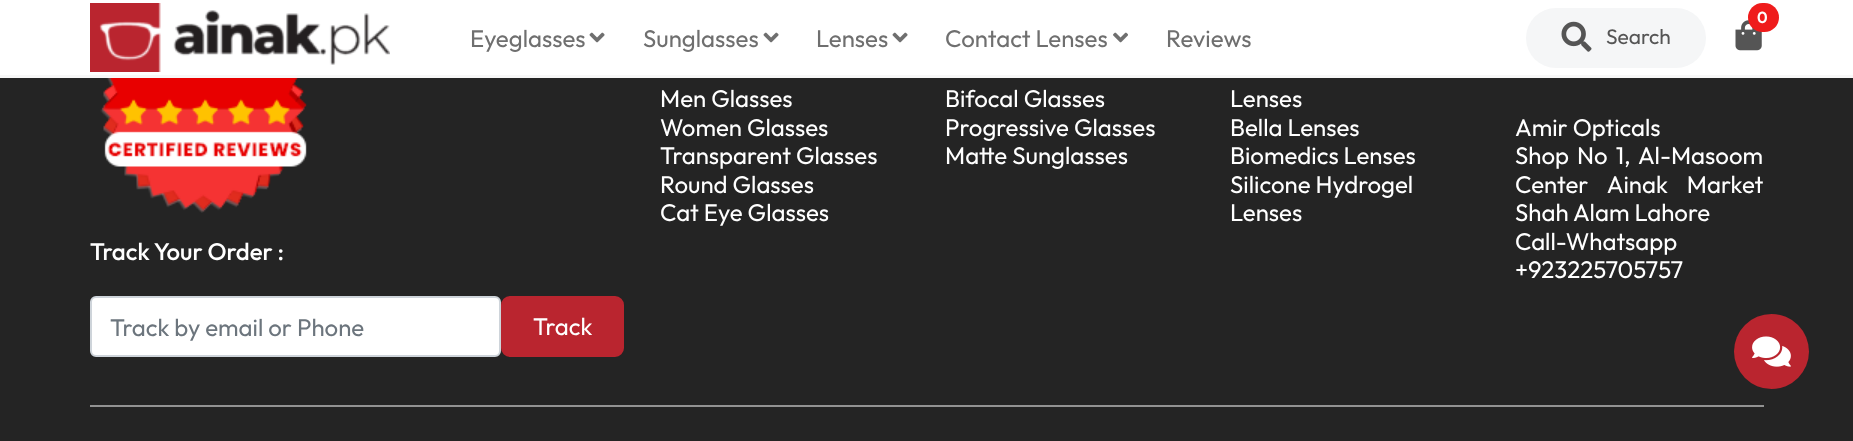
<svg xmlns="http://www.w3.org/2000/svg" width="1853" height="441">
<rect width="100%" height="100%" fill="#242424"/>
<rect width="1853" height="75" fill="#fff"/>
<rect y="75" width="1853" height="3" fill="#f7f7f7"/>
<image x="90" y="3" width="300" height="69" href="media/1.png"/>
<text x="470" y="47" style="font-family:Outfit;font-size:24px;fill:#6f6f6f">Eyeglasses</text>
<image x="589" y="32" width="16" height="11" href="media/2.png"/>
<text x="643" y="47" style="font-family:Outfit;font-size:24px;fill:#6f6f6f">Sunglasses</text>
<image x="763" y="32" width="16" height="11" href="media/2.png"/>
<text x="816" y="47" style="font-family:Outfit;font-size:24px;fill:#6f6f6f">Lenses</text>
<image x="892" y="32" width="16" height="11" href="media/2.png"/>
<text x="945" y="47" style="font-family:Outfit;font-size:24px;fill:#6f6f6f">Contact Lenses</text>
<image x="1113" y="32" width="15" height="11" href="media/3.png"/>
<text x="1166" y="47" style="font-family:Outfit;font-size:24px;fill:#6f6f6f">Reviews</text>
<image x="1735" y="20" width="27" height="31" href="media/4.png"/>
<rect x="1748" y="3" width="31" height="29" rx="14.5" fill="#ef1c1c"/>
<text x="1757" y="23" style="font-family:Outfit;font-size:16px;font-weight:600;fill:#fff">0</text>
<rect x="1526" y="8" width="180" height="60" rx="30" fill="#f5f6f7"/>
<image x="1561" y="21" width="31" height="31" href="media/5.png"/>
<text x="1606" y="44" style="font-family:Outfit;font-size:21px;fill:#555">Search</text>
<text x="660" y="107" style="font-family:Outfit;font-size:24px;fill:#fff">Men Glasses</text>
<text x="660" y="136" style="font-family:Outfit;font-size:24px;fill:#fff">Women Glasses</text>
<text x="660" y="164" style="font-family:Outfit;font-size:24px;fill:#fff">Transparent Glasses</text>
<text x="660" y="193" style="font-family:Outfit;font-size:24px;fill:#fff">Round Glasses</text>
<text x="660" y="221" style="font-family:Outfit;font-size:24px;fill:#fff">Cat Eye Glasses</text>
<text x="945" y="107" style="font-family:Outfit;font-size:24px;fill:#fff">Bifocal Glasses</text>
<text x="945" y="136" style="font-family:Outfit;font-size:24px;fill:#fff">Progressive Glasses</text>
<text x="945" y="164" style="font-family:Outfit;font-size:24px;fill:#fff">Matte Sunglasses</text>
<text x="1230" y="107" style="font-family:Outfit;font-size:24px;fill:#fff">Lenses</text>
<text x="1230" y="136" style="font-family:Outfit;font-size:24px;fill:#fff">Bella Lenses</text>
<text x="1230" y="164" style="font-family:Outfit;font-size:24px;fill:#fff">Biomedics Lenses</text>
<text x="1230" y="193" style="font-family:Outfit;font-size:24px;fill:#fff">Silicone Hydrogel</text>
<text x="1230" y="221" style="font-family:Outfit;font-size:24px;fill:#fff">Lenses</text>
<text x="1515" y="136" style="font-family:Outfit;font-size:24px;fill:#fff">Amir Opticals</text>
<text x="1515" y="164" word-spacing="3" style="font-family:Outfit;font-size:24px;fill:#fff">Shop No 1, Al-Masoom</text>
<text x="1515" y="193" word-spacing="14" style="font-family:Outfit;font-size:24px;fill:#fff">Center Ainak Market</text>
<text x="1515" y="221" style="font-family:Outfit;font-size:24px;fill:#fff">Shah Alam Lahore</text>
<text x="1515" y="250" style="font-family:Outfit;font-size:24px;fill:#fff">Call-Whatsapp</text>
<text x="1515" y="278" style="font-family:Outfit;font-size:24px;fill:#fff">+923225705757</text>
<image x="100" y="78" width="207" height="135" href="media/6.png"/>
<text x="90" y="260" style="font-family:Outfit;font-size:24px;font-weight:500;fill:#fff">Track Your Order :</text>
<rect x="91" y="297" width="409" height="59" rx="5" fill="#fff" stroke="#ced4da" stroke-width="2"/>
<text x="110" y="336" style="font-family:Outfit;font-size:24px;fill:#6c757d">Track by email or Phone</text>
<rect x="502" y="297" width="121" height="59" rx="8" fill="#ba252f" stroke="#ba252f" stroke-width="2"/>
<text x="533" y="335" style="font-family:Outfit;font-size:24px;fill:#fff">Track</text>
<rect x="90" y="405" width="1674" height="2" fill="#929292"/>
<circle cx="1771.5" cy="351.5" r="37.5" fill="#ba252f"/>
<image x="1752" y="336" width="39" height="31" href="media/7.png"/>
</svg>
